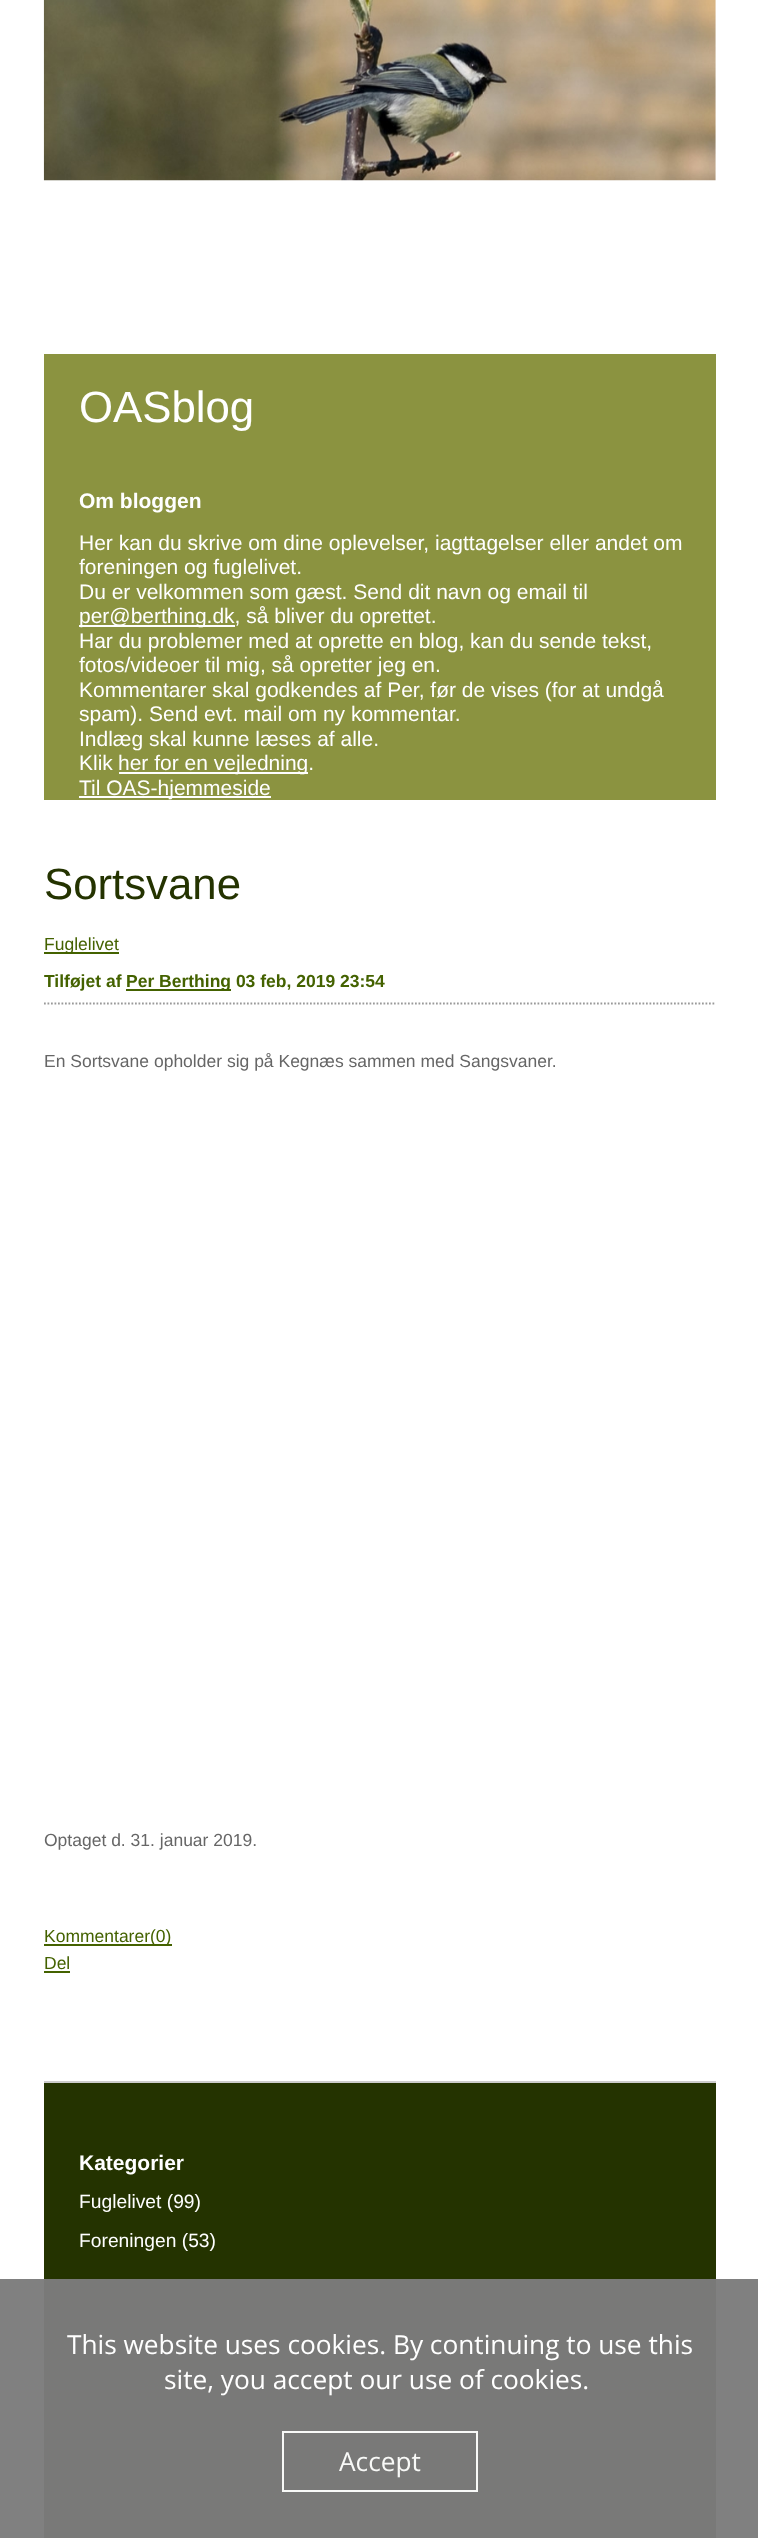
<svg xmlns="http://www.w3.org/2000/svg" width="758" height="2538">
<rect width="100%" height="100%" fill="#fff"/>
<image x="43" y="0" width="673" height="181" href="media/1.png"/>
<rect x="44" y="354" width="672" height="446" fill="#8b9340"/>
<text x="79" y="422" style="font-family:Liberation Sans;font-size:43.75px;fill:#fff">OASblog</text>
<text x="79" y="508" style="font-family:Liberation Sans;font-size:21px;font-weight:bold;fill:#fff">Om bloggen</text>
<text x="79" y="550" style="font-family:Liberation Sans;font-size:21px;fill:#fff">Her kan du skrive om dine oplevelser, iagttagelser eller andet om</text>
<text x="79" y="574" style="font-family:Liberation Sans;font-size:21px;fill:#fff">foreningen og fuglelivet.</text>
<text x="79" y="599" style="font-family:Liberation Sans;font-size:21px;fill:#fff">Du er velkommen som gæst. Send dit navn og email til</text>
<rect x="79" y="625" width="156" height="2" fill="#fff"/>
<text x="79" y="623" style="font-family:Liberation Sans;font-size:21px;fill:#fff">per@berthing.dk, så bliver du oprettet.</text>
<text x="79" y="648" style="font-family:Liberation Sans;font-size:21px;fill:#fff">Har du problemer med at oprette en blog, kan du sende tekst,</text>
<text x="79" y="672" style="font-family:Liberation Sans;font-size:21px;fill:#fff">fotos/videoer til mig, så opretter jeg en.</text>
<text x="79" y="697" style="font-family:Liberation Sans;font-size:21px;fill:#fff">Kommentarer skal godkendes af Per, før de vises (for at undgå</text>
<text x="79" y="721" style="font-family:Liberation Sans;font-size:21px;fill:#fff">spam). Send evt. mail om ny kommentar.</text>
<text x="79" y="746" style="font-family:Liberation Sans;font-size:21px;fill:#fff">Indlæg skal kunne læses af alle.</text>
<text x="79" y="770" style="font-family:Liberation Sans;font-size:21px;fill:#fff">Klik</text>
<rect x="119" y="772" width="189" height="2" fill="#fff"/>
<text x="118" y="770" style="font-family:Liberation Sans;font-size:21px;fill:#fff">her for en vejledning.</text>
<rect x="79" y="796" width="192" height="2" fill="#fff"/>
<text x="79" y="795" style="font-family:Liberation Sans;font-size:21px;fill:#fff">Til OAS-hjemmeside</text>
<text x="44" y="899" style="font-family:Liberation Sans;font-size:43.75px;fill:#243300">Sortsvane</text>
<rect x="44" y="952" width="75" height="2" fill="#446200"/>
<text x="44" y="950" style="font-family:Liberation Sans;font-size:17.5px;fill:#446200">Fuglelivet</text>
<path d="M44 1003.5h672" fill="none" stroke="#999" stroke-width="1.8" stroke-dasharray="1.75 1.75"/>
<text x="44" y="987" style="font-family:Liberation Sans;font-size:17.5px;font-weight:bold;fill:#446200">Tilføjet af</text>
<rect x="126" y="989" width="105" height="2" fill="#446200"/>
<text x="126" y="987" style="font-family:Liberation Sans;font-size:17.5px;font-weight:bold;fill:#446200">Per Berthing 03 feb, 2019 23:54</text>
<text x="44" y="1067" style="font-family:Liberation Sans;font-size:17.5px;fill:#666">En Sortsvane opholder sig på Kegnæs sammen med Sangsvaner.</text>
<text x="44" y="1846" style="font-family:Liberation Sans;font-size:17.5px;fill:#666">Optaget d. 31. januar 2019.</text>
<rect x="44" y="1944" width="128" height="2" fill="#446200"/>
<text x="44" y="1942" style="font-family:Liberation Sans;font-size:17.5px;fill:#446200">Kommentarer(0)</text>
<text x="44" y="1969" style="font-family:Liberation Sans;font-size:17.5px;fill:#446200">Del</text>
<rect x="44" y="1971" width="26" height="2" fill="#446200"/>
<rect x="44" y="2083" width="672" height="455" fill="#243300"/>
<rect x="44" y="2081" width="672" height="2" fill="#ccc"/>
<text x="79" y="2170" style="font-family:Liberation Sans;font-size:21px;font-weight:bold;fill:#fff">Kategorier</text>
<text x="79" y="2208" style="font-family:Liberation Sans;font-size:19.25px;fill:#fff">Fuglelivet (99)</text>
<text x="79" y="2247" style="font-family:Liberation Sans;font-size:19.25px;fill:#fff">Foreningen (53)</text>
<rect y="2279" width="758" height="259" fill="#7c7c7cf7"/>
<text x="67" y="2354" style="font-family:Open Sans;font-size:26.25px;fill:#fff">This website uses cookies. By continuing to use this</text>
<text x="164" y="2389" style="font-family:Open Sans;font-size:26.25px;fill:#fff">site, you accept our use of cookies.</text>
<rect x="283" y="2432" width="194" height="59" fill="none" stroke="#f8f9f7" stroke-width="2"/>
<text x="339" y="2471" style="font-family:Open Sans;font-size:26.25px;fill:#f8f9f7">Accept</text>
</svg>
